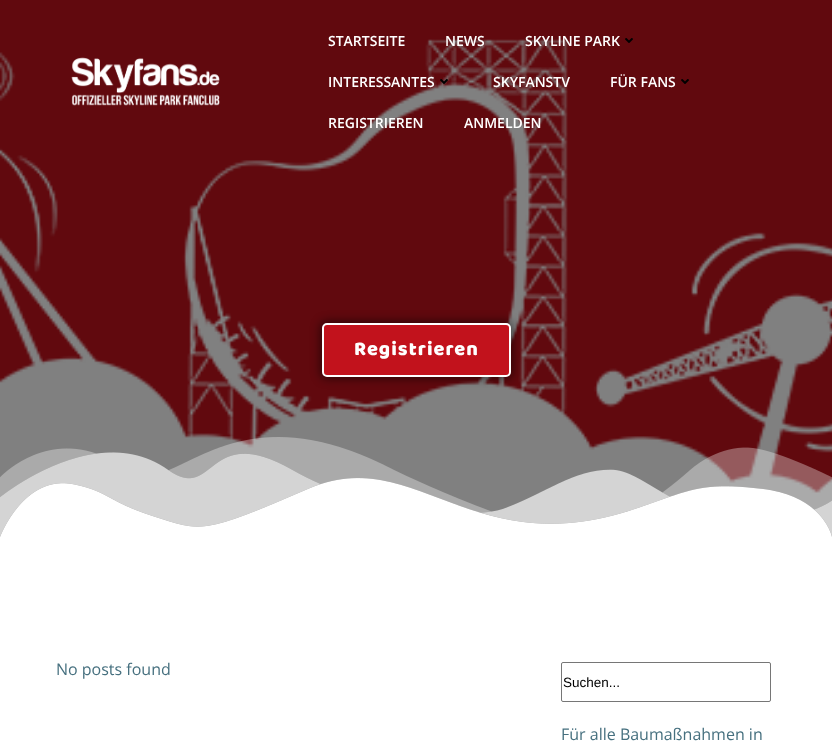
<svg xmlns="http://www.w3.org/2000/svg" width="832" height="755">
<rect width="100%" height="100%" fill="#fff"/>
<rect width="832" height="493" fill="#61090e"/>
<image x="0" y="39" width="832" height="498" href="media/4.png"/>
<image x="71" y="57" width="149" height="49" href="media/1.png"/>
<text x="328" y="46" style="font-family:Open Sans;font-size:14px;font-weight:600;fill:#fff">STARTSEITE</text>
<text x="445" y="46" style="font-family:Open Sans;font-size:14px;font-weight:600;fill:#fff">NEWS</text>
<text x="525" y="46" style="font-family:Open Sans;font-size:14px;font-weight:600;fill:#fff">SKYLINE PARK</text>
<image x="625" y="38" width="8" height="5" href="media/2.png"/>
<text x="328" y="87" style="font-family:Open Sans;font-size:14px;font-weight:600;fill:#fff">INTERESSANTES</text>
<image x="440" y="79" width="8" height="5" href="media/3.png"/>
<text x="493" y="87" style="font-family:Open Sans;font-size:14px;font-weight:600;fill:#fff">SKYFANSTV</text>
<text x="610" y="87" style="font-family:Open Sans;font-size:14px;font-weight:600;fill:#fff">FÜR FANS</text>
<image x="681" y="79" width="8" height="5" href="media/2.png"/>
<text x="328" y="128" style="font-family:Open Sans;font-size:14px;font-weight:600;fill:#fff">REGISTRIEREN</text>
<text x="464" y="128" style="font-family:Open Sans;font-size:14px;font-weight:600;fill:#fff">ANMELDEN</text>
<rect x="320" y="321" width="193" height="58" rx="7" fill="#00000080" filter="blur(5px)"/>
<rect x="323" y="324" width="187" height="52" rx="4" fill="#c2121c" stroke="#fff" stroke-width="2"/>
<text x="354" y="355" style="font-family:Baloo;font-size:20px;letter-spacing:1px;fill:#fff">Registrieren</text>
<image x="0" y="437" width="832" height="100" href="media/5.png"/>
<text x="56" y="675" style="font-family:Open Sans;font-size:16px;fill:#46707f">No posts found</text>
<rect x="561.5" y="662.5" width="209" height="39" rx="1.5" fill="none" stroke="#767676"/>
<text x="563" y="687" style="font-family:Liberation Sans;font-size:13.5px;fill:#000">Suchen...</text>
<text x="561" y="740" style="font-family:Open Sans;font-size:16px;fill:#46707f">Für alle Baumaßnahmen in</text>
</svg>
